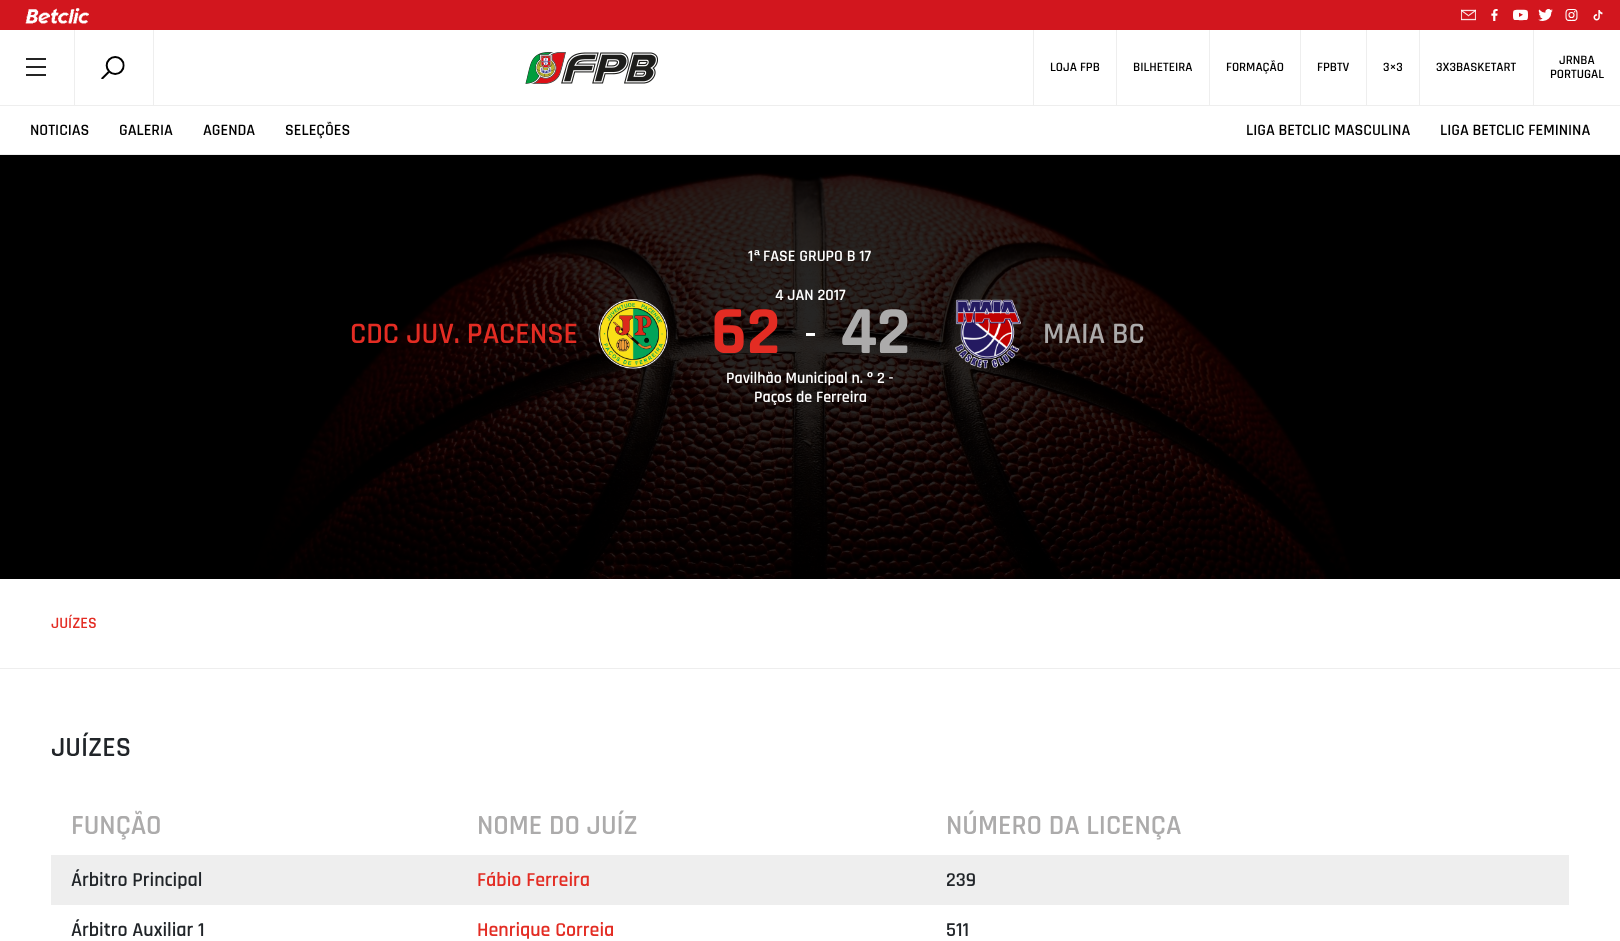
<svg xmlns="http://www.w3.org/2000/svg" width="1620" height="941">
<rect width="100%" height="100%" fill="#fff"/>
<rect y="154" width="1620" height="1" fill="#eee"/>
<rect width="1620" height="30" fill="#d2161e"/>
<image x="25" y="8" width="64" height="16" href="media/1.png"/>
<image x="1461" y="9" width="15" height="12" href="media/2.png"/>
<image x="1491" y="9" width="7" height="12" href="media/3.png"/>
<image x="1513" y="9" width="15" height="12" href="media/4.png"/>
<image x="1538" y="9" width="15" height="12" href="media/5.png"/>
<image x="1565" y="9" width="13" height="12" href="media/6.png"/>
<image x="1593" y="10" width="10" height="11" href="media/7.png"/>
<rect y="105" width="1620" height="1" fill="#eee"/>
<rect x="74" y="30" width="1" height="75" fill="#eee"/>
<image x="26" y="58" width="20" height="18" href="media/8.png"/>
<rect x="153" y="30" width="1" height="75" fill="#eee"/>
<image x="101" y="56" width="24" height="23" href="media/9.png"/>
<image x="525" y="52" width="133" height="32" href="media/10.png"/>
<rect x="1033" y="30" width="1" height="75" fill="#eee"/>
<text x="1050" y="71" style="font-family:Rajdhani;font-size:13px;font-weight:600;fill:#000">LOJA FPB</text>
<rect x="1116" y="30" width="1" height="75" fill="#eee"/>
<text x="1133" y="71" style="font-family:Rajdhani;font-size:13px;font-weight:600;fill:#000">BILHETEIRA</text>
<rect x="1209" y="30" width="1" height="75" fill="#eee"/>
<text x="1226" y="71" style="font-family:Rajdhani;font-size:13px;font-weight:600;fill:#000">FORMAÇÃO</text>
<rect x="1300" y="30" width="1" height="75" fill="#eee"/>
<text x="1317" y="71" style="font-family:Rajdhani;font-size:13px;font-weight:600;fill:#000">FPBTV</text>
<rect x="1366" y="30" width="1" height="75" fill="#eee"/>
<text x="1383" y="71" style="font-family:Rajdhani;font-size:13px;font-weight:600;fill:#000">3×3</text>
<rect x="1419" y="30" width="1" height="75" fill="#eee"/>
<text x="1436" y="71" style="font-family:Rajdhani;font-size:13px;font-weight:600;fill:#000">3X3BASKETART</text>
<rect x="1533" y="30" width="1" height="75" fill="#eee"/>
<text x="1559" y="64" style="font-family:Rajdhani;font-size:13px;font-weight:600;fill:#000">JRNBA</text>
<text x="1550" y="78" style="font-family:Rajdhani;font-size:13px;font-weight:600;fill:#000">PORTUGAL</text>
<text x="30" y="135" style="font-family:Rajdhani;font-size:16px;font-weight:600;fill:#000">NOTICIAS</text>
<text x="119" y="135" style="font-family:Rajdhani;font-size:16px;font-weight:600;fill:#000">GALERIA</text>
<text x="203" y="135" style="font-family:Rajdhani;font-size:16px;font-weight:600;fill:#000">AGENDA</text>
<text x="285" y="135" style="font-family:Rajdhani;font-size:16px;font-weight:600;fill:#000">SELEÇÕES</text>
<text x="1246" y="135" style="font-family:Rajdhani;font-size:16px;font-weight:600;fill:#000">LIGA BETCLIC MASCULINA</text>
<text x="1440" y="135" style="font-family:Rajdhani;font-size:16px;font-weight:600;fill:#000">LIGA BETCLIC FEMININA</text>
<image x="0" y="155" width="1620" height="424" href="media/11.png"/>
<text x="748" y="261" style="font-family:Rajdhani;font-size:16px;font-weight:600;fill:#fff">1</text>
<text x="754" y="261" style="font-family:Liberation Sans;font-size:16px;font-weight:bold;fill:#fff">ª</text>
<text x="763" y="261" style="font-family:Rajdhani;font-size:16px;font-weight:600;fill:#fff">FASE GRUPO B 17</text>
<text x="775" y="300" style="font-family:Rajdhani;font-size:16px;font-weight:600;fill:#fff">4 JAN 2017</text>
<text x="350" y="343" style="font-family:Rajdhani;font-size:30px;font-weight:600;fill:#e32c23">CDC JUV. PACENSE</text>
<image x="598" y="299" width="70" height="70" href="media/12.png"/>
<text x="711" y="353" style="font-family:Rajdhani;font-size:68px;font-weight:bold;fill:#e32c23">62</text>
<rect x="806" y="333" width="9" height="3" fill="#fff"/>
<text x="840" y="353" style="font-family:Rajdhani;font-size:68px;font-weight:bold;fill:#acabab">42</text>
<image x="955" y="299" width="66" height="70" href="media/13.png"/>
<text x="1043" y="343" style="font-family:Rajdhani;font-size:30px;font-weight:600;fill:#acabab">MAIA BC</text>
<text x="726" y="383" style="font-family:Rajdhani;font-size:16px;font-weight:600;fill:#fff">Pavilhão Municipal n.</text>
<text x="867" y="383" style="font-family:Liberation Sans;font-size:16px;font-weight:bold;fill:#fff">º</text>
<text x="877" y="383" style="font-family:Rajdhani;font-size:16px;font-weight:600;fill:#fff">2 -</text>
<text x="754" y="402" style="font-family:Rajdhani;font-size:16px;font-weight:600;fill:#fff">Paços de Ferreira</text>
<rect y="668" width="1620" height="1" fill="#eee"/>
<text x="51" y="628" style="font-family:Rajdhani;font-size:16px;font-weight:600;fill:#e32c23">JUÍZES</text>
<text x="51" y="756" style="font-family:Rajdhani;font-size:28px;font-weight:600;fill:#212529">JUÍZES</text>
<text x="71" y="834" style="font-family:Rajdhani;font-size:28px;font-weight:600;fill:#acabab">FUNÇÃO</text>
<text x="477" y="834" style="font-family:Rajdhani;font-size:28px;font-weight:600;fill:#acabab">NOME DO JUÍZ</text>
<text x="946" y="834" style="font-family:Rajdhani;font-size:28px;font-weight:600;fill:#acabab">NÚMERO DA LICENÇA</text>
<rect x="51" y="855" width="1518" height="50" fill="#eee"/>
<text x="71" y="886" style="font-family:Rajdhani;font-size:20px;font-weight:600;fill:#212529">Árbitro Principal</text>
<text x="477" y="886" style="font-family:Rajdhani;font-size:20px;font-weight:600;fill:#e32c23">Fábio Ferreira</text>
<text x="946" y="886" style="font-family:Rajdhani;font-size:20px;font-weight:600;fill:#212529">239</text>
<text x="71" y="936" style="font-family:Rajdhani;font-size:20px;font-weight:600;fill:#212529">Árbitro Auxiliar 1</text>
<text x="477" y="936" style="font-family:Rajdhani;font-size:20px;font-weight:600;fill:#e32c23">Henrique Correia</text>
<text x="946" y="936" style="font-family:Rajdhani;font-size:20px;font-weight:600;fill:#212529">511</text>
</svg>
